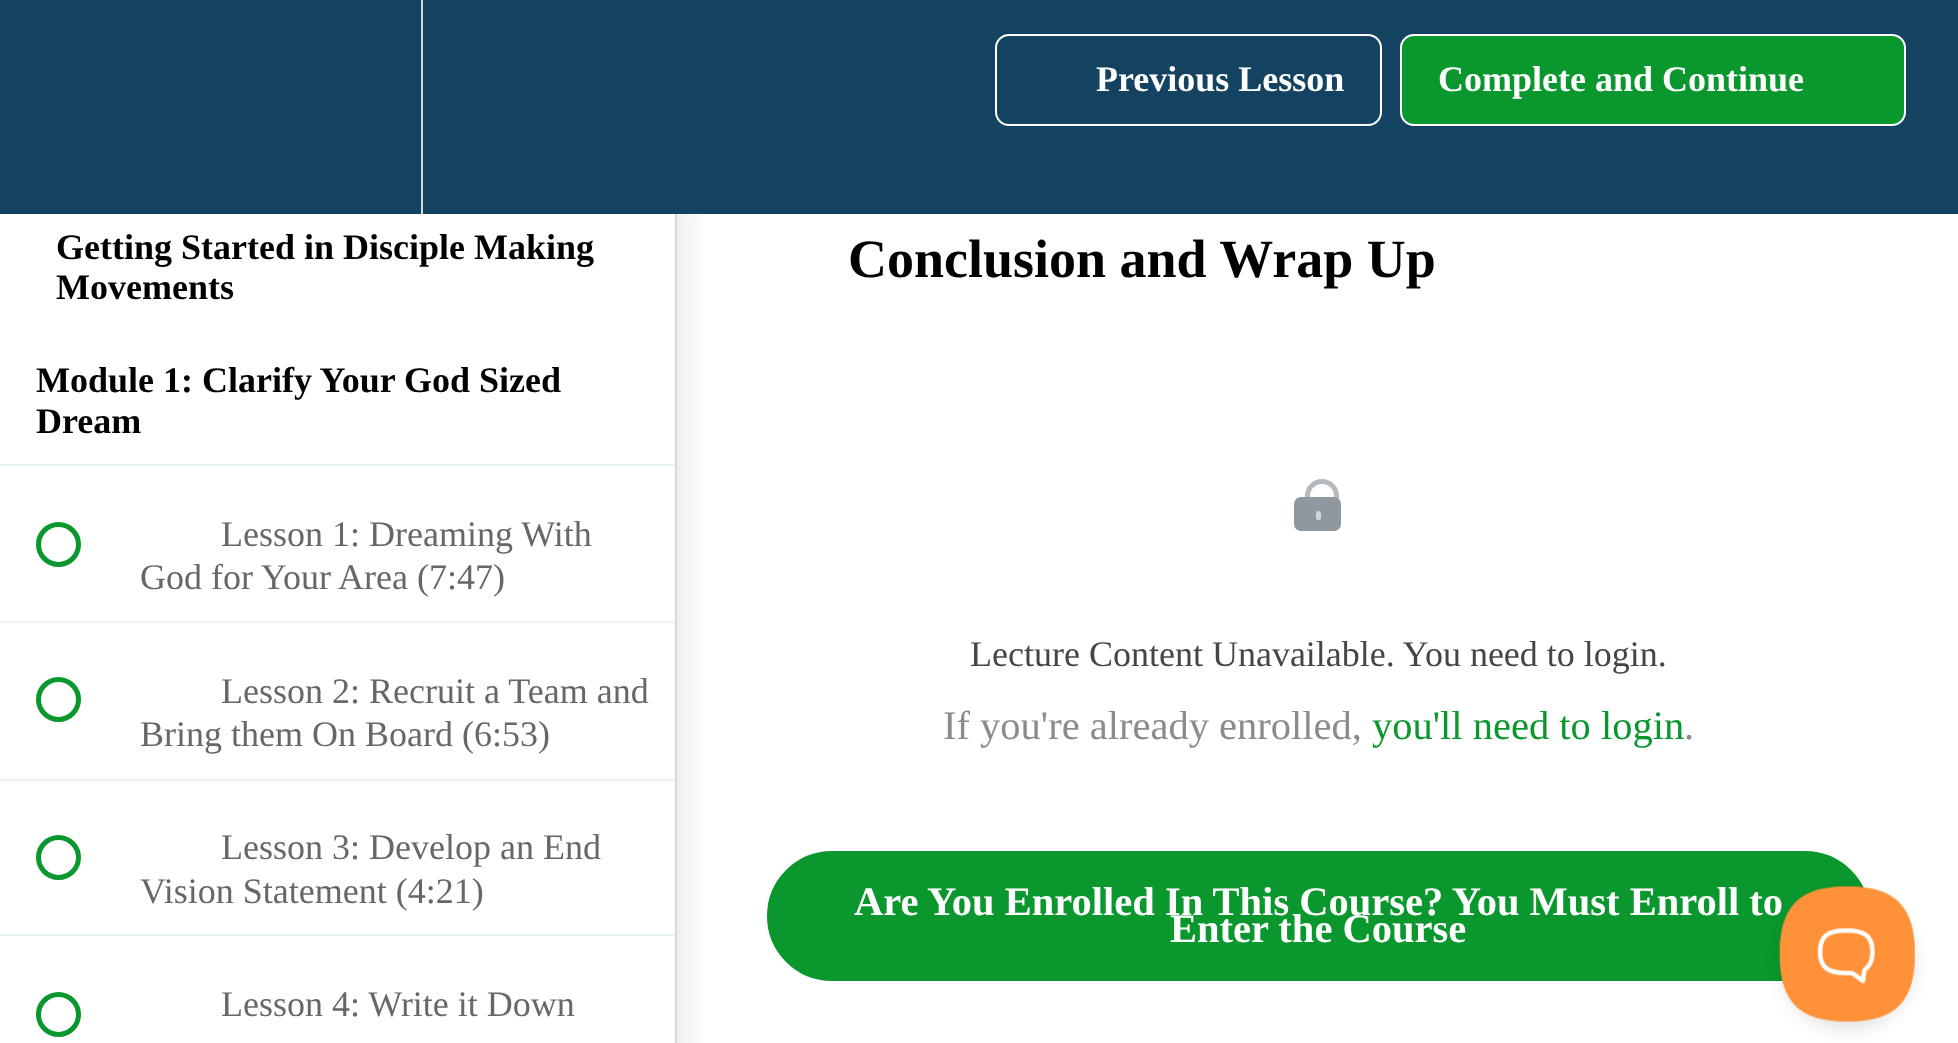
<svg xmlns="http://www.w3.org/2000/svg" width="1958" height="1043">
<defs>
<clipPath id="clip1"><rect x="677" y="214" width="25" height="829"/></clipPath>
</defs>
<rect width="100%" height="100%" fill="#fff"/>
<g clip-path="url(#clip1)">
<rect y="185" width="677" height="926" fill="#20272d26" filter="blur(22.5px)"/>
</g>
<rect width="1958" height="214" fill="#134361"/>
<rect x="421" width="2" height="214" fill="#d7dadb"/>
<rect x="996" y="35" width="385" height="90" rx="13" fill="none" stroke="#fff" stroke-width="2"/>
<text x="1096" y="91" style="font-family:Liberation Serif;font-size:36px;font-weight:bold;fill:#fff">Previous Lesson</text>
<rect x="1401" y="35" width="504" height="90" rx="13" fill="#0a972d" stroke="#fff" stroke-width="2"/>
<text x="1438" y="91" style="font-family:Liberation Serif;font-size:36px;font-weight:bold;fill:#fff">Complete and Continue</text>
<rect x="675" y="214" width="2" height="829" fill="#d7dadb"/>
<text x="56" y="259" style="font-family:Liberation Serif;font-size:36px;font-weight:bold;fill:#000">Getting Started in Disciple Making</text>
<text x="56" y="299" style="font-family:Liberation Serif;font-size:36px;font-weight:bold;fill:#000">Movements</text>
<rect y="464" width="675" height="2" fill="#e7f5ea"/>
<text x="36" y="392" style="font-family:Liberation Serif;font-size:36px;font-weight:bold;fill:#000">Module 1: Clarify Your God Sized</text>
<text x="36" y="433" style="font-family:Liberation Serif;font-size:36px;font-weight:bold;fill:#000">Dream</text>
<rect y="621" width="675" height="2" fill="#e7f5ea"/>
<circle cx="58.5" cy="544.5" r="20" fill="none" stroke="#0a972d" stroke-width="5"/>
<text x="221" y="546" style="font-family:Liberation Serif;font-size:36px;fill:#676767">Lesson 1: Dreaming With</text>
<text x="140" y="589" style="font-family:Liberation Serif;font-size:36px;fill:#676767">God for Your Area (7:47)</text>
<rect y="779" width="675" height="2" fill="#e7f5ea"/>
<circle cx="58.5" cy="699.5" r="20" fill="none" stroke="#0a972d" stroke-width="5"/>
<text x="221" y="703" style="font-family:Liberation Serif;font-size:36px;fill:#676767">Lesson 2: Recruit a Team and</text>
<text x="140" y="746" style="font-family:Liberation Serif;font-size:36px;fill:#676767">Bring them On Board (6:53)</text>
<rect y="934" width="675" height="2" fill="#e7f5ea"/>
<circle cx="58.5" cy="857.5" r="20" fill="none" stroke="#0a972d" stroke-width="5"/>
<text x="221" y="859" style="font-family:Liberation Serif;font-size:36px;fill:#676767">Lesson 3: Develop an End</text>
<text x="140" y="903" style="font-family:Liberation Serif;font-size:36px;fill:#676767">Vision Statement (4:21)</text>
<circle cx="58.5" cy="1014.5" r="20" fill="none" stroke="#0a972d" stroke-width="5"/>
<text x="221" y="1016" style="font-family:Liberation Serif;font-size:36px;fill:#676767">Lesson 4: Write it Down</text>
<text x="848" y="277" style="font-family:Liberation Serif;font-size:54px;font-weight:bold;fill:#000">Conclusion and Wrap Up</text>
<rect x="1307.5" y="481.5" width="29" height="45" rx="14.5" fill="none" stroke="#b5babf" stroke-width="5"/>
<rect x="1294" y="497" width="47" height="34" rx="7" fill="#8f989f"/>
<rect x="1316" y="511" width="5" height="9" rx="2.5" fill="#d3d7dc"/>
<text x="970" y="666" style="font-family:Liberation Serif;font-size:36px;fill:#454545">Lecture Content Unavailable. You need to login.</text>
<text x="943" y="739" style="font-family:Liberation Serif;font-size:40.5px;fill:#8b8b8b">If you're already enrolled,</text>
<text x="1372" y="739" style="font-family:Liberation Serif;font-size:40.5px;fill:#0a972d">you'll need to login</text>
<text x="1684" y="739" style="font-family:Liberation Serif;font-size:40.5px;fill:#8b8b8b">.</text>
<rect x="768" y="852" width="1101" height="128" rx="64" fill="#0a972d" stroke="#0a972d" stroke-width="2"/>
<text x="854" y="915" style="font-family:Liberation Serif;font-size:40.5px;font-weight:bold;fill:#fff">Are You Enrolled In This Course? You Must Enroll to</text>
<text x="1170" y="942" style="font-family:Liberation Serif;font-size:40.5px;font-weight:bold;fill:#fff">Enter the Course</text>
<rect x="1780" y="896" width="135" height="135" rx="67.5" fill="#0000001a" filter="blur(8px)"/>
<image x="1779" y="886" width="136" height="136" href="media/1.png"/>
</svg>
